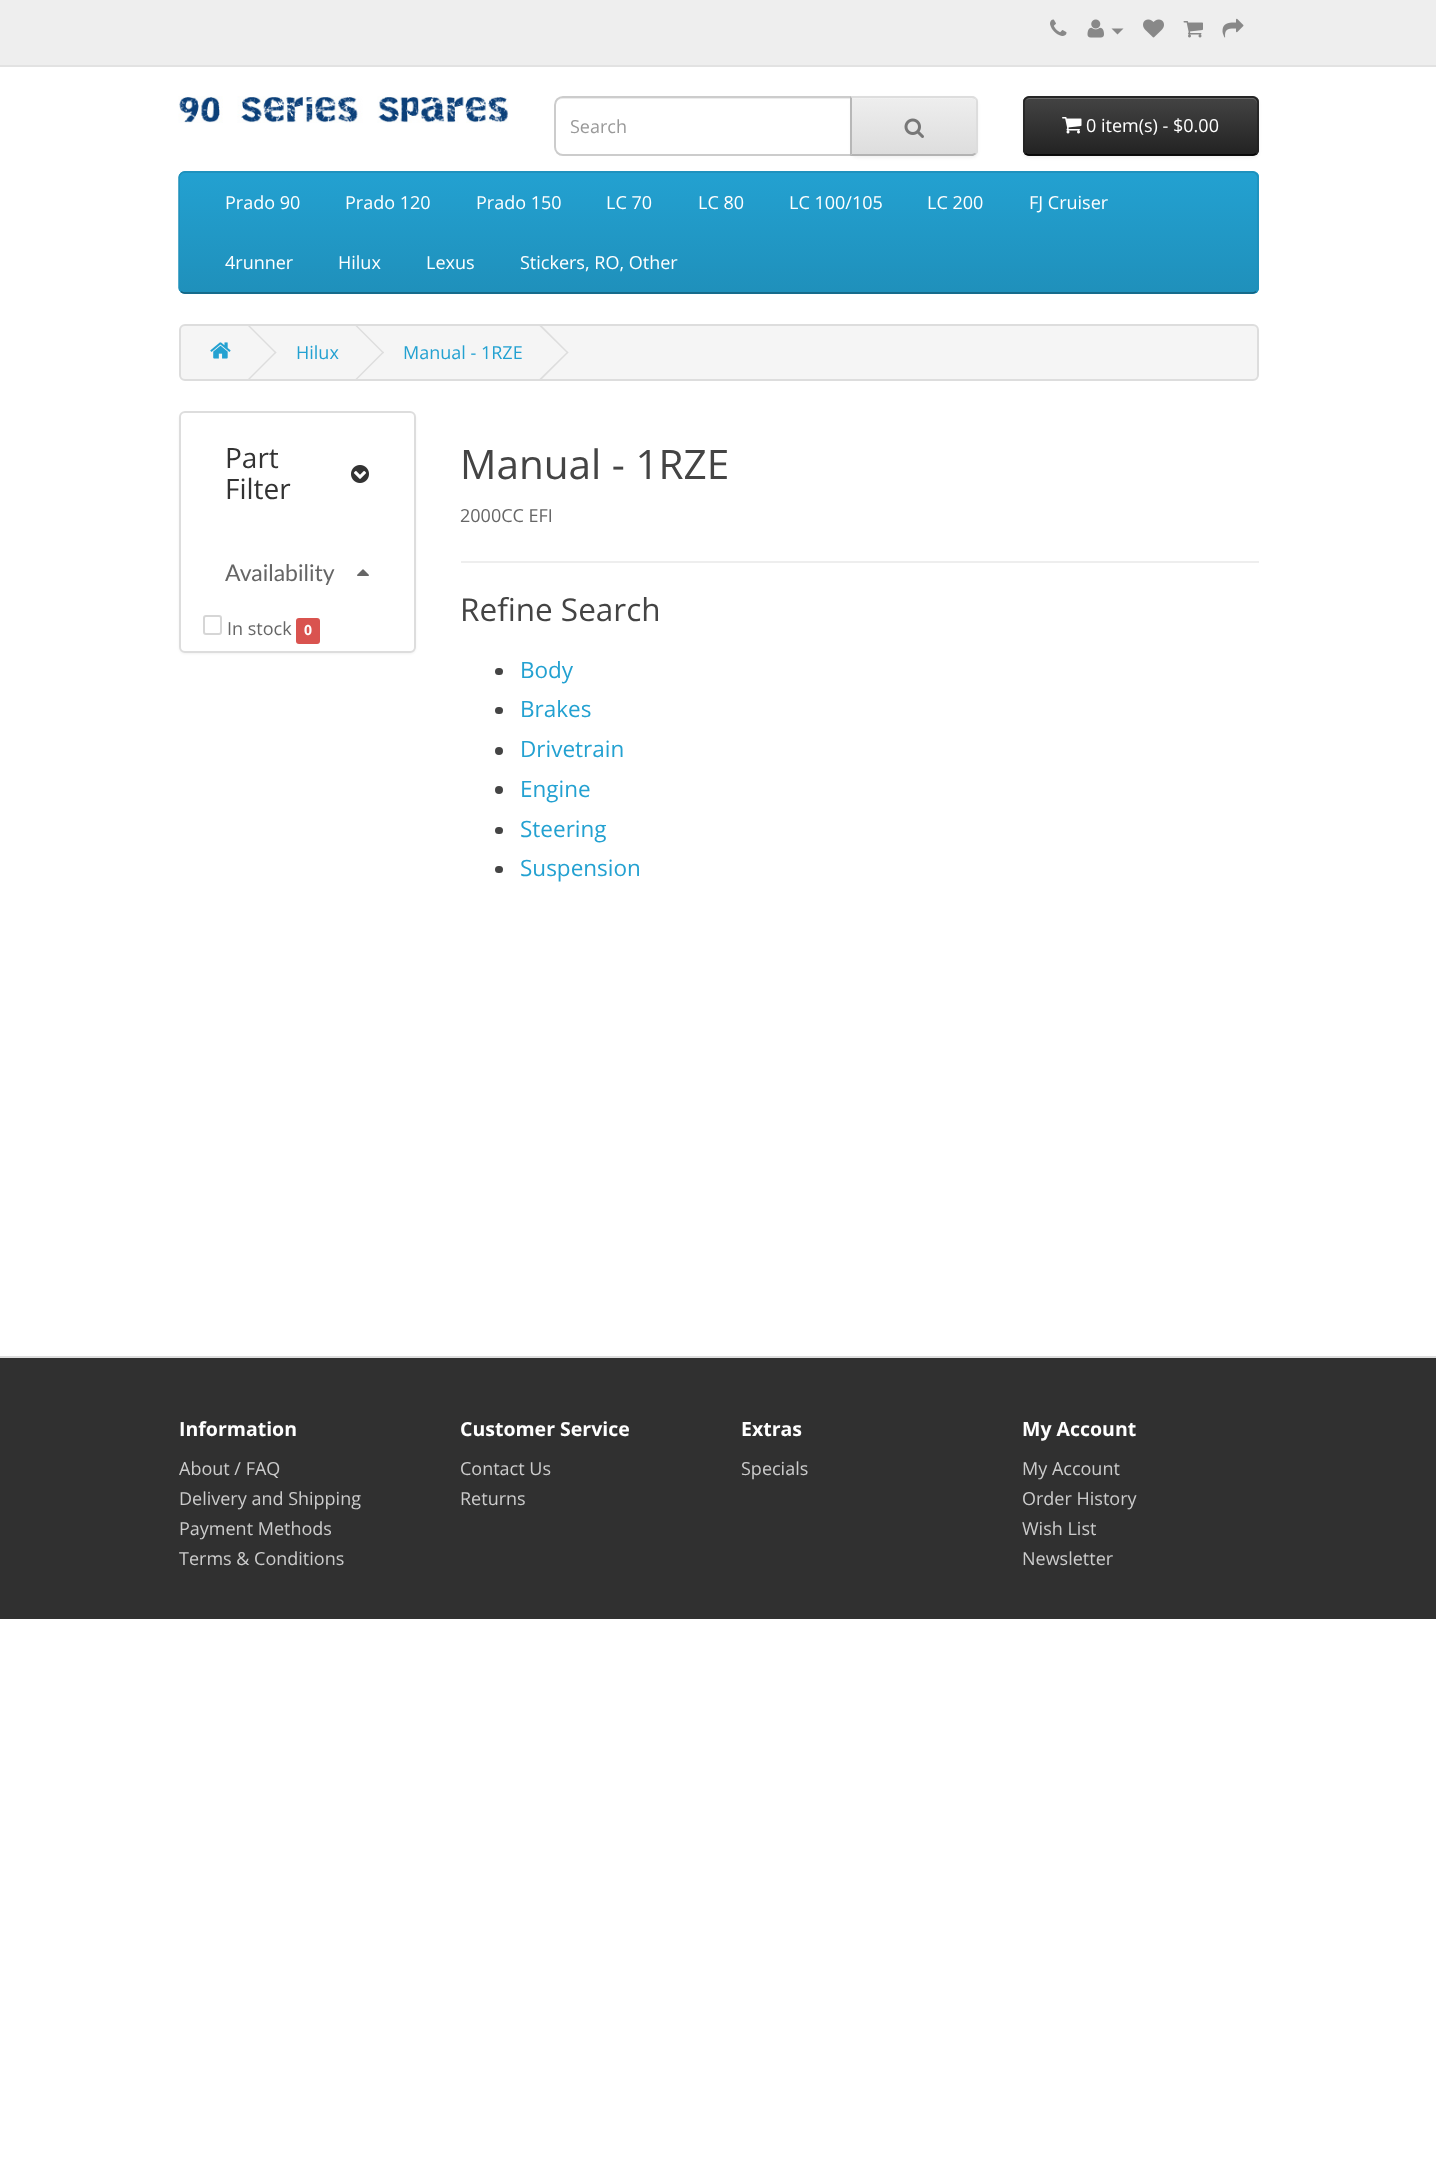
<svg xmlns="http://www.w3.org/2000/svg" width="1436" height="2176">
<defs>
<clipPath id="clip1"><path d="M851 96h121c3.5 0 6 2.5 6 6v48c0 3.5-2.5 6-6 6h-121z"/></clipPath>
<linearGradient id="g1" gradientUnits="userSpaceOnUse" x1="914" y1="98" x2="914" y2="155"><stop offset="0" stop-color="#eee"/><stop offset="1" stop-color="#ddd"/></linearGradient>
<clipPath id="clip2"><rect x="1023" y="96" width="236" height="60" rx="6"/></clipPath>
<linearGradient id="g2" gradientUnits="userSpaceOnUse" x1="1141" y1="97" x2="1141" y2="155"><stop offset="0" stop-color="#444"/><stop offset="1" stop-color="#222"/></linearGradient>
<clipPath id="clip3"><rect x="179" y="171" width="1080" height="123" rx="6"/></clipPath>
<linearGradient id="g3" gradientUnits="userSpaceOnUse" x1="719" y1="172" x2="719" y2="293"><stop offset="0" stop-color="#23a1d1"/><stop offset="1" stop-color="#1f90bb"/></linearGradient>
</defs>
<rect width="100%" height="100%" fill="#fff"/>
<rect width="1436" height="65" fill="#eee"/>
<rect y="65" width="1436" height="2" fill="#e2e2e2"/>
<image x="1050" y="19" width="17" height="17" href="media/1.png"/>
<image x="1087" y="19" width="17" height="19" href="media/2.png"/>
<path d="M1111.5 28.5h12l-6 6z" fill="#888"/>
<image x="1143" y="19" width="21" height="19" href="media/3.png"/>
<image x="1183" y="21" width="20" height="17" href="media/4.png"/>
<image x="1222" y="18" width="22" height="20" href="media/5.png"/>
<image x="178" y="96" width="331" height="27" href="media/6.png"/>
<path d="M562 99h288v56h1v-57h-288c-4 0-8 4-8 8c0-4 3-7 7-7z" fill="#ececec"/>
<path d="M563 97h288v58h-288c-4.5 0-8-3.5-8-8v-42c0-4.5 3.5-8 8-8z" fill="none" stroke="#ccc" stroke-width="2"/>
<text x="570" y="133" style="font-family:Open Sans;font-size:18px;fill:#999">Search</text>
<rect x="851" y="98" width="127" height="60" rx="6" fill="#0000000d" filter="blur(1.5px)"/>
<path d="M851 96h121c3.5 0 6 2.5 6 6v48c0 3.5-2.5 6-6 6h-121z" fill="#e7e7e7"/>
<g clip-path="url(#clip1)">
<rect x="851" y="98" width="127" height="57" fill="url(#g1)"/>
</g>
<path d="M852 99h120c6 0 4 11 4 13v41c1-1 1-2 1-3v-47c0-3-2-5-5-5h-120z" fill="#ffffff33"/>
<path d="M850 96l2 2h120l3 1l1-1c-1-1-2-2-4-2z" fill="#ddd"/>
<path d="M978 150v-48c0-2-1-3-2-4l-1 1c1 1 1 2 1 3v48c0 1 0 2-1 3l1 1c1-1 2-2 2-4z" fill="#ddd"/>
<path d="M850 156h123l3-2l-1-1l-3 1h-120z" fill="#b3b3b3"/>
<path d="M852 98l-2-2v60l2-2z" fill="#b7b7b7"/>
<image x="904" y="118" width="20" height="20" href="media/7.png"/>
<rect x="1023" y="98" width="236" height="60" rx="6" fill="#0000000d" filter="blur(1.5px)"/>
<rect x="1023" y="96" width="236" height="60" rx="6" fill="#363636"/>
<g clip-path="url(#clip2)">
<rect x="1023" y="98" width="236" height="57" fill="url(#g2)"/>
</g>
<path d="M1029 99h223c3 0 5 2 5 5v-1c0-3-2-5-5-5h-222c-2 0-3 1-4 2z" fill="#696969"/>
<path d="M1256 153.5c-1 1-2 1.5-3.5 1.5h-223.5c-1.5 0-2.5-.5-3.5-1.5" fill="none" stroke="#000" stroke-width="1.5"/>
<path d="M1025.5 153.5c-1-1-1.5-2-1.5-3.5v-48c0-1.5 .5-2.5 1.5-3.5c1-1 2-1.5 3.5-1.5h223.5c1.5 0 2.5 .5 3.5 1.5c1 1 2 2 2 3.5v48c0 1.5-1 2.5-2 3.5" fill="none" stroke="#222" stroke-width="1.5"/>
<image x="1062" y="117" width="20" height="17" href="media/8.png"/>
<text x="1086" y="132" style="font-family:Open Sans;font-size:18px;fill:#fff">0 item(s) - $0.00</text>
<rect x="179" y="171" width="1080" height="123" rx="6" fill="#229ac8"/>
<g clip-path="url(#clip3)">
<rect x="179" y="173" width="1080" height="120" fill="url(#g3)"/>
</g>
<path d="M1256 291.5c-1 1-2 1.5-3.5 1.5h-1068c-1.5 0-2.5-.5-3.5-1.5" fill="none" stroke="#145e7a" stroke-width="1.5"/>
<path d="M181 291.5c-1-1-2-2-2-3.5v-111c0-1.5 1-2.5 2-3.5c1-1 2-1.5 3.5-1.5h1068c1.5 0 2.5 .5 3.5 1.5c1 1 2 2 2 3.5v111c0 1.5-1 2.5-2 3.5" fill="none" stroke="#1f90bb" stroke-width="1.5"/>
<text x="225" y="209" style="font-family:Open Sans;font-size:18px;fill:#fff">Prado 90</text>
<text x="345" y="209" style="font-family:Open Sans;font-size:18px;fill:#fff">Prado 120</text>
<text x="476" y="209" style="font-family:Open Sans;font-size:18px;fill:#fff">Prado 150</text>
<text x="606" y="209" style="font-family:Open Sans;font-size:18px;fill:#fff">LC 70</text>
<text x="698" y="209" style="font-family:Open Sans;font-size:18px;fill:#fff">LC 80</text>
<text x="789" y="209" style="font-family:Open Sans;font-size:18px;fill:#fff">LC 100/105</text>
<text x="927" y="209" style="font-family:Open Sans;font-size:18px;fill:#fff">LC 200</text>
<text x="1029" y="209" style="font-family:Open Sans;font-size:18px;fill:#fff">FJ Cruiser</text>
<text x="225" y="269" style="font-family:Open Sans;font-size:18px;fill:#fff">4runner</text>
<text x="338" y="269" style="font-family:Open Sans;font-size:18px;fill:#fff">Hilux</text>
<text x="426" y="269" style="font-family:Open Sans;font-size:18px;fill:#fff">Lexus</text>
<text x="520" y="269" style="font-family:Open Sans;font-size:18px;fill:#fff">Stickers, RO, Other</text>
<rect x="180" y="325" width="1078" height="55" rx="5" fill="#f5f5f5" stroke="#ddd" stroke-width="2"/>
<image x="210" y="342" width="21" height="17" href="media/9.png"/>
<path d="M248 326l1-1l27.5 27.5l-1 1z" fill="#ddd"/>
<path d="M248 379l27.5-27.5l1 1l-27.5 27.5z" fill="#ddd"/>
<text x="296" y="359" style="font-family:Open Sans;font-size:18px;fill:#23a1d1">Hilux</text>
<path d="M355.5 326l1-1l27.5 27.5l-1 1z" fill="#ddd"/>
<path d="M355.5 379l27.5-27.5l1 1l-27.5 27.5z" fill="#ddd"/>
<text x="403" y="359" style="font-family:Open Sans;font-size:18px;fill:#23a1d1">Manual - 1RZE</text>
<path d="M539.5 326l1.5-1l27.5 27.5l-1 1z" fill="#ddd"/>
<path d="M539.5 379l28-27.5l1 1l-27.5 27.5z" fill="#ddd"/>
<rect x="179" y="413" width="237" height="241" rx="6" fill="#0000000d" filter="blur(1px)"/>
<rect x="180" y="412" width="235" height="240" rx="5" fill="#fff" stroke="#ddd" stroke-width="2"/>
<text x="225" y="468" style="font-family:Open Sans;font-size:28px;fill:#333">Part</text>
<text x="225" y="499" style="font-family:Open Sans;font-size:28px;fill:#333">Filter</text>
<image x="351" y="465" width="18" height="18" href="media/10.png"/>
<text x="225" y="581" style="font-family:Lato;font-size:23px;fill:#666">Availability</text>
<image x="357" y="569" width="12" height="7" href="media/11.png"/>
<rect x="204" y="616" width="17" height="18" rx="2" fill="none" stroke="#d6d6d6" stroke-width="2"/>
<text x="227" y="635" style="font-family:Open Sans;font-size:18px;fill:#666">In stock</text>
<rect x="296" y="618" width="24" height="26" rx="3" fill="#d9534f"/>
<text x="304" y="635" style="font-family:Open Sans;font-size:14px;font-weight:bold;fill:#fff">0</text>
<text x="460" y="479" style="font-family:Open Sans;font-size:40.5px;fill:#444">Manual - 1RZE</text>
<text x="460" y="522" style="font-family:Open Sans;font-size:18px;fill:#666">2000CC EFI</text>
<rect x="461" y="561" width="798" height="2" fill="#eee"/>
<text x="460" y="621" style="font-family:Open Sans;font-size:31.5px;fill:#444">Refine Search</text>
<rect x="495" y="668" width="8" height="7" rx="3.5" fill="#444"/>
<text x="520" y="678" style="font-family:Open Sans;font-size:22.5px;fill:#23a1d1">Body</text>
<rect x="495" y="707" width="8" height="7" rx="3.5" fill="#444"/>
<text x="520" y="717" style="font-family:Open Sans;font-size:22.5px;fill:#23a1d1">Brakes</text>
<circle cx="499" cy="751" r="4" fill="#444"/>
<text x="520" y="757" style="font-family:Open Sans;font-size:22.5px;fill:#23a1d1">Drivetrain</text>
<circle cx="499" cy="790" r="4" fill="#444"/>
<text x="520" y="797" style="font-family:Open Sans;font-size:22.5px;fill:#23a1d1">Engine</text>
<rect x="495" y="827" width="8" height="7" rx="3.5" fill="#444"/>
<text x="520" y="837" style="font-family:Open Sans;font-size:22.5px;fill:#23a1d1">Steering</text>
<rect x="495" y="866" width="8" height="7" rx="3.5" fill="#444"/>
<text x="520" y="876" style="font-family:Open Sans;font-size:22.5px;fill:#23a1d1">Suspension</text>
<rect y="1358" width="1436" height="261" fill="#303030"/>
<rect y="1356" width="1436" height="2" fill="#ddd"/>
<text x="179" y="1436" style="font-family:Open Sans;font-size:19.5px;font-weight:bold;fill:#fff">Information</text>
<text x="179" y="1475" style="font-family:Open Sans;font-size:18px;fill:#ccc">About / FAQ</text>
<text x="179" y="1505" style="font-family:Open Sans;font-size:18px;fill:#ccc">Delivery and Shipping</text>
<text x="179" y="1535" style="font-family:Open Sans;font-size:18px;fill:#ccc">Payment Methods</text>
<text x="179" y="1565" style="font-family:Open Sans;font-size:18px;fill:#ccc">Terms &amp; Conditions</text>
<text x="460" y="1436" style="font-family:Open Sans;font-size:19.5px;font-weight:bold;fill:#fff">Customer Service</text>
<text x="460" y="1475" style="font-family:Open Sans;font-size:18px;fill:#ccc">Contact Us</text>
<text x="460" y="1505" style="font-family:Open Sans;font-size:18px;fill:#ccc">Returns</text>
<text x="741" y="1436" style="font-family:Open Sans;font-size:19.5px;font-weight:bold;fill:#fff">Extras</text>
<text x="741" y="1475" style="font-family:Open Sans;font-size:18px;fill:#ccc">Specials</text>
<text x="1022" y="1436" style="font-family:Open Sans;font-size:19.5px;font-weight:bold;fill:#fff">My Account</text>
<text x="1022" y="1475" style="font-family:Open Sans;font-size:18px;fill:#ccc">My Account</text>
<text x="1022" y="1505" style="font-family:Open Sans;font-size:18px;fill:#ccc">Order History</text>
<text x="1022" y="1535" style="font-family:Open Sans;font-size:18px;fill:#ccc">Wish List</text>
<text x="1022" y="1565" style="font-family:Open Sans;font-size:18px;fill:#ccc">Newsletter</text>
</svg>
